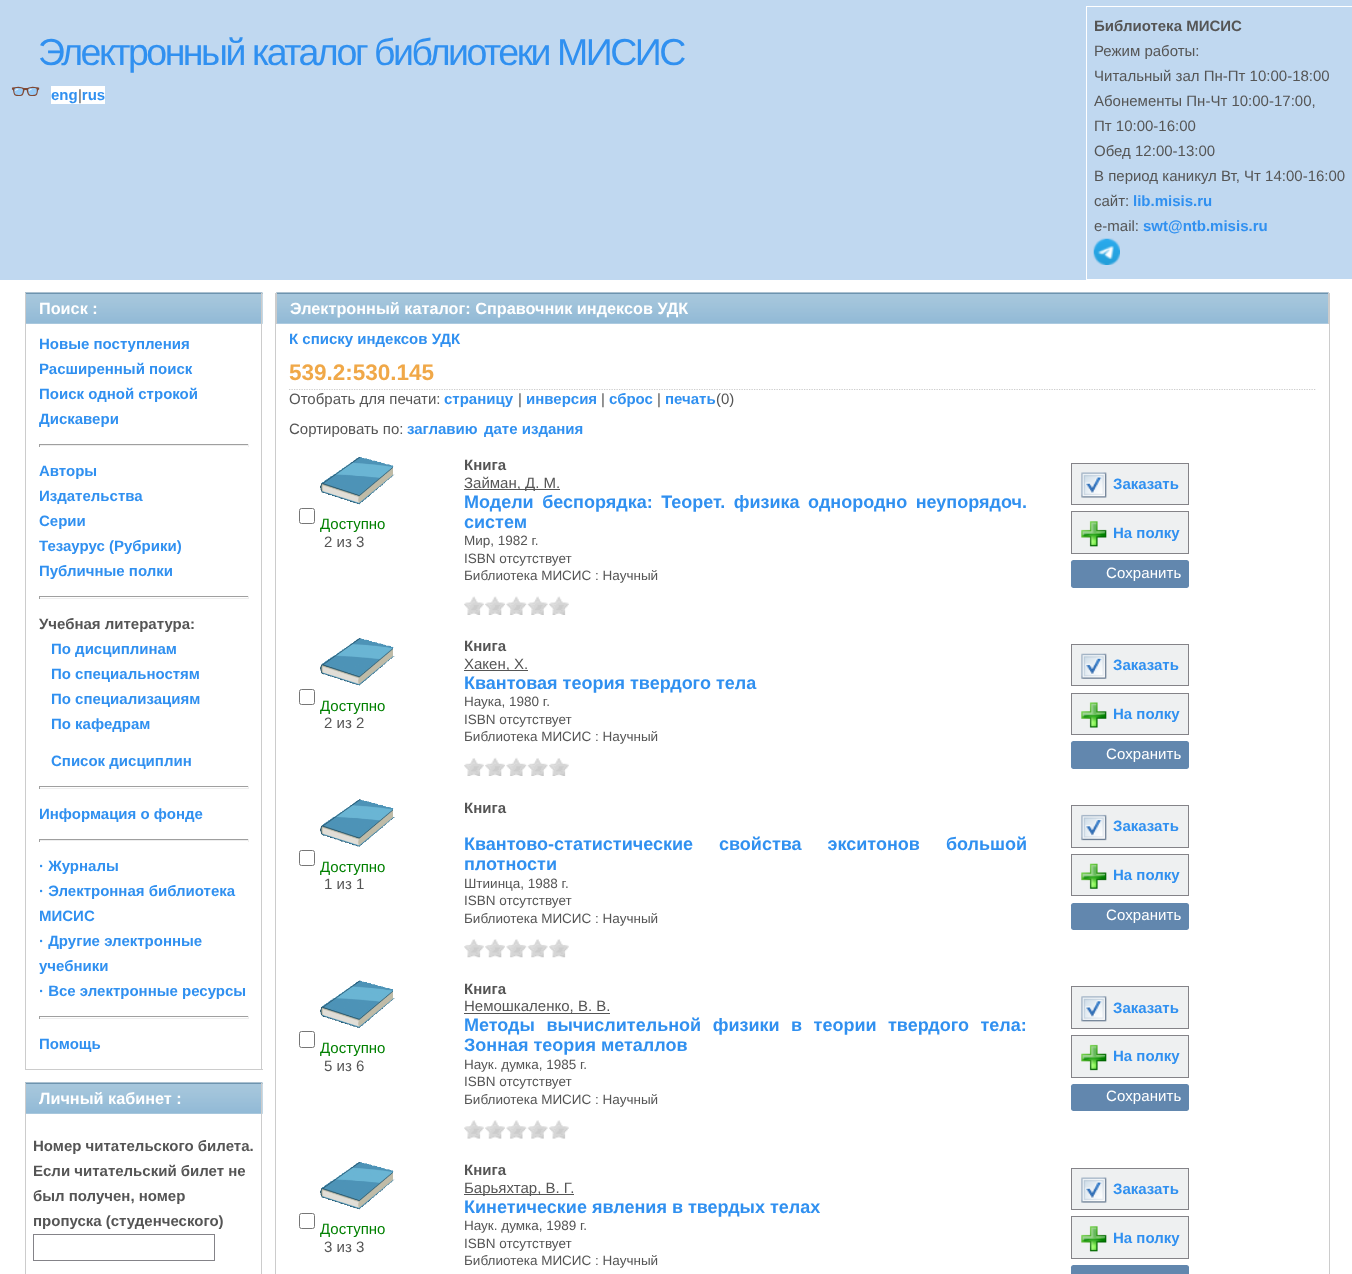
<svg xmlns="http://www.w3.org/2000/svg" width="1352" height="1274">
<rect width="100%" height="100%" fill="#fff"/>
<rect width="1352" height="280" fill="#c0d8f0"/>
<text x="38" y="65" style="font-family:Liberation Sans;font-size:37.5px;letter-spacing:-2.5px;fill:#3090f0">Электронный каталог библиотеки МИСИС</text>
<text x="10" y="100" style="font-family:Noto Color Emoji;font-size:25px;font-weight:bold;fill:#3090f0">👓</text>
<rect x="51" y="86" width="54" height="18" fill="#fff"/>
<text x="51" y="100" style="font-family:Liberation Sans;font-size:15px;font-weight:bold;fill:#3090f0">eng rus</text>
<text x="78" y="100" style="font-family:Liberation Sans;font-size:15px;fill:#555">|</text>
<rect x="1086.5" y="6.5" width="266" height="273" fill="none" stroke="#fff"/>
<text x="1094" y="31" style="font-family:Liberation Sans;font-size:15px;font-weight:bold;fill:#555">Библиотека МИСИС</text>
<text x="1094" y="56" style="font-family:Liberation Sans;font-size:15px;fill:#555">Режим работы:</text>
<text x="1094" y="81" style="font-family:Liberation Sans;font-size:15px;fill:#555">Читальный зал Пн-Пт 10:00-18:00</text>
<text x="1094" y="106" style="font-family:Liberation Sans;font-size:15px;fill:#555">Абонементы Пн-Чт 10:00-17:00,</text>
<text x="1094" y="131" style="font-family:Liberation Sans;font-size:15px;fill:#555">Пт 10:00-16:00</text>
<text x="1094" y="156" style="font-family:Liberation Sans;font-size:15px;fill:#555">Обед 12:00-13:00</text>
<text x="1094" y="181" style="font-family:Liberation Sans;font-size:15px;fill:#555">В период каникул Вт, Чт 14:00-16:00</text>
<text x="1094" y="206" style="font-family:Liberation Sans;font-size:15px;fill:#555">сайт:</text>
<text x="1133" y="206" style="font-family:Liberation Sans;font-size:15px;font-weight:bold;fill:#3090f0">lib.misis.ru</text>
<text x="1094" y="231" style="font-family:Liberation Sans;font-size:15px;fill:#555">e-mail:</text>
<text x="1143" y="231" style="font-family:Liberation Sans;font-size:15px;font-weight:bold;fill:#3090f0">swt@ntb.misis.ru</text>
<image x="1093" y="238" width="27" height="27" href="media/1.png"/>
<rect x="26" y="293" width="237" height="31" fill="#eef0f1"/>
<image x="25" y="292" width="238" height="32" href="media/2.png"/>
<rect x="261" y="293" width="1" height="777" fill="#ccc"/>
<rect x="25" y="293" width="1" height="31" fill="#ccc"/>
<text x="39" y="314" style="font-family:Liberation Sans;font-size:16.25px;font-weight:bold;fill:#fff">Поиск :</text>
<rect x="25" y="1069" width="238" height="1" fill="#ccc"/>
<rect x="25" y="324" width="1" height="746" fill="#ccc"/>
<text x="39" y="349" style="font-family:Liberation Sans;font-size:15px;font-weight:bold;fill:#3090f0">Новые поступления</text>
<text x="39" y="374" style="font-family:Liberation Sans;font-size:15px;font-weight:bold;fill:#3090f0">Расширенный поиск</text>
<text x="39" y="399" style="font-family:Liberation Sans;font-size:15px;font-weight:bold;fill:#3090f0">Поиск одной строкой</text>
<text x="39" y="424" style="font-family:Liberation Sans;font-size:15px;font-weight:bold;fill:#3090f0">Дискавери</text>
<rect x="39" y="444" width="210" height="1" fill="#9f9f9f"/>
<rect x="248" y="444" width="1" height="3" fill="#eee"/>
<rect x="39" y="445" width="210" height="1" fill="#eee"/>
<rect x="39" y="444" width="1" height="3" fill="#9f9f9f"/>
<text x="39" y="476" style="font-family:Liberation Sans;font-size:15px;font-weight:bold;fill:#3090f0">Авторы</text>
<text x="39" y="501" style="font-family:Liberation Sans;font-size:15px;font-weight:bold;fill:#3090f0">Издательства</text>
<text x="39" y="526" style="font-family:Liberation Sans;font-size:15px;font-weight:bold;fill:#3090f0">Серии</text>
<text x="39" y="551" style="font-family:Liberation Sans;font-size:15px;font-weight:bold;fill:#3090f0">Тезаурус (Рубрики)</text>
<text x="39" y="576" style="font-family:Liberation Sans;font-size:15px;font-weight:bold;fill:#3090f0">Публичные полки</text>
<rect x="39" y="596" width="210" height="1" fill="#9f9f9f"/>
<rect x="248" y="596" width="1" height="3" fill="#eee"/>
<rect x="39" y="598" width="210" height="1" fill="#eee"/>
<rect x="39" y="596" width="1" height="3" fill="#9f9f9f"/>
<text x="39" y="629" style="font-family:Liberation Sans;font-size:15px;font-weight:bold;fill:#555">Учебная литература:</text>
<text x="51" y="654" style="font-family:Liberation Sans;font-size:15px;font-weight:bold;fill:#3090f0">По дисциплинам</text>
<text x="51" y="679" style="font-family:Liberation Sans;font-size:15px;font-weight:bold;fill:#3090f0">По специальностям</text>
<text x="51" y="704" style="font-family:Liberation Sans;font-size:15px;font-weight:bold;fill:#3090f0">По специализациям</text>
<text x="51" y="729" style="font-family:Liberation Sans;font-size:15px;font-weight:bold;fill:#3090f0">По кафедрам</text>
<text x="51" y="766" style="font-family:Liberation Sans;font-size:15px;font-weight:bold;fill:#3090f0">Список дисциплин</text>
<rect x="39" y="786" width="210" height="1" fill="#9f9f9f"/>
<rect x="248" y="786" width="1" height="3" fill="#eee"/>
<rect x="39" y="788" width="210" height="1" fill="#eee"/>
<rect x="39" y="786" width="1" height="3" fill="#9f9f9f"/>
<text x="39" y="819" style="font-family:Liberation Sans;font-size:15px;font-weight:bold;fill:#3090f0">Информация о фонде</text>
<rect x="39" y="839" width="210" height="1" fill="#9f9f9f"/>
<rect x="248" y="839" width="1" height="3" fill="#eee"/>
<rect x="39" y="840" width="210" height="1" fill="#eee"/>
<rect x="39" y="839" width="1" height="3" fill="#9f9f9f"/>
<text x="39" y="871" style="font-family:Liberation Sans;font-size:15px;font-weight:bold;fill:#3090f0">· Журналы</text>
<text x="39" y="896" style="font-family:Liberation Sans;font-size:15px;font-weight:bold;fill:#3090f0">· Электронная библиотека</text>
<text x="39" y="921" style="font-family:Liberation Sans;font-size:15px;font-weight:bold;fill:#3090f0">МИСИС</text>
<text x="39" y="946" style="font-family:Liberation Sans;font-size:15px;font-weight:bold;fill:#3090f0">· Другие электронные</text>
<text x="39" y="971" style="font-family:Liberation Sans;font-size:15px;font-weight:bold;fill:#3090f0">учебники</text>
<text x="39" y="996" style="font-family:Liberation Sans;font-size:15px;font-weight:bold;fill:#3090f0">· Все электронные ресурсы</text>
<rect x="39" y="1016" width="210" height="1" fill="#9f9f9f"/>
<rect x="248" y="1016" width="1" height="3" fill="#eee"/>
<rect x="39" y="1018" width="210" height="1" fill="#eee"/>
<rect x="39" y="1016" width="1" height="3" fill="#9f9f9f"/>
<text x="39" y="1049" style="font-family:Liberation Sans;font-size:15px;font-weight:bold;fill:#3090f0">Помощь</text>
<rect x="26" y="1083" width="237" height="31" fill="#eef0f1"/>
<image x="25" y="1082" width="238" height="32" href="media/2.png"/>
<rect x="261" y="1083" width="1" height="191" fill="#ccc"/>
<rect x="25" y="1083" width="1" height="191" fill="#ccc"/>
<text x="39" y="1104" style="font-family:Liberation Sans;font-size:16.25px;font-weight:bold;fill:#fff">Личный кабинет :</text>
<text x="33" y="1151" style="font-family:Liberation Sans;font-size:15px;font-weight:bold;fill:#555">Номер читательского билета.</text>
<text x="33" y="1176" style="font-family:Liberation Sans;font-size:15px;font-weight:bold;fill:#555">Если читательский билет не</text>
<text x="33" y="1201" style="font-family:Liberation Sans;font-size:15px;font-weight:bold;fill:#555">был получен, номер</text>
<text x="33" y="1226" style="font-family:Liberation Sans;font-size:15px;font-weight:bold;fill:#555">пропуска (студенческого)</text>
<rect x="33.5" y="1234.5" width="181" height="26" fill="none" stroke="#848388"/>
<rect x="1329" y="293" width="1" height="981" fill="#ccc"/>
<rect x="275" y="293" width="1" height="981" fill="#ccc"/>
<image x="276" y="292" width="1053" height="32" href="media/3.png"/>
<rect x="1328" y="293" width="1" height="31" fill="#ccc"/>
<rect x="276" y="293" width="1" height="31" fill="#ccc"/>
<text x="290" y="314" style="font-family:Liberation Sans;font-size:16.25px;font-weight:bold;fill:#fff">Электронный каталог: Справочник индексов УДК</text>
<text x="289" y="344" style="font-family:Liberation Sans;font-size:15px;font-weight:bold;fill:#3090f0">К списку индексов УДК</text>
<path d="M289 389.5h1027" fill="none" stroke="#ccc" stroke-width="1.2" stroke-dasharray="1.25 1.25"/>
<text x="289" y="380" style="font-family:Liberation Sans;font-size:22.5px;font-weight:bold;fill:#f0a848">539.2:530.145</text>
<text x="289" y="404" style="font-family:Liberation Sans;font-size:15px;fill:#555">Отобрать для печати:</text>
<text x="444" y="404" style="font-family:Liberation Sans;font-size:15px;font-weight:bold;fill:#3090f0">страницу</text>
<text x="518" y="404" style="font-family:Liberation Sans;font-size:15px;fill:#555">|</text>
<text x="526" y="404" style="font-family:Liberation Sans;font-size:15px;font-weight:bold;fill:#3090f0">инверсия</text>
<text x="601" y="404" style="font-family:Liberation Sans;font-size:15px;fill:#555">|</text>
<text x="609" y="404" style="font-family:Liberation Sans;font-size:15px;font-weight:bold;fill:#3090f0">сброс</text>
<text x="657" y="404" style="font-family:Liberation Sans;font-size:15px;fill:#555">|</text>
<text x="665" y="404" style="font-family:Liberation Sans;font-size:15px;font-weight:bold;fill:#3090f0">печать</text>
<text x="716" y="404" style="font-family:Liberation Sans;font-size:15px;fill:#555">(0)</text>
<text x="289" y="434" style="font-family:Liberation Sans;font-size:15px;fill:#555">Сортировать по:</text>
<text x="407" y="434" style="font-family:Liberation Sans;font-size:15px;font-weight:bold;fill:#3090f0">заглавию</text>
<text x="484" y="434" style="font-family:Liberation Sans;font-size:15px;font-weight:bold;fill:#3090f0">дате издания</text>
<rect x="299.5" y="508.5" width="15" height="15" rx="2" fill="none" stroke="#767676"/>
<image x="320" y="457" width="75" height="48" href="media/4.png"/>
<text x="320" y="529" style="font-family:Liberation Sans;font-size:15px;fill:#008000">Доступно</text>
<text x="324" y="547" style="font-family:Liberation Sans;font-size:15px;fill:#555">2 из 3</text>
<text x="464" y="470" style="font-family:Liberation Sans;font-size:15px;font-weight:bold;fill:#555">Книга</text>
<rect x="464" y="489" width="96" height="1" fill="#555"/>
<text x="464" y="488" style="font-family:Liberation Sans;font-size:15px;fill:#555">Займан, Д. М.</text>
<text x="464" y="508" word-spacing="3.5" style="font-family:Liberation Sans;font-size:18px;font-weight:bold;fill:#3090f0">Модели беспорядка: Теорет. физика однородно неупорядоч.</text>
<text x="464" y="528" style="font-family:Liberation Sans;font-size:18px;font-weight:bold;fill:#3090f0">систем</text>
<text x="464" y="545" style="font-family:Liberation Sans;font-size:13.5px;fill:#555">Мир, 1982 г.</text>
<text x="464" y="563" style="font-family:Liberation Sans;font-size:13.5px;fill:#555">ISBN отсутствует</text>
<text x="464" y="580" style="font-family:Liberation Sans;font-size:13.5px;fill:#555">Библиотека МИСИС : Научный</text>
<image x="464" y="596" width="20" height="19" href="media/5.png"/>
<image x="485" y="596" width="20" height="19" href="media/6.png"/>
<image x="506" y="596" width="21" height="19" href="media/7.png"/>
<image x="527" y="596" width="21" height="19" href="media/8.png"/>
<image x="549" y="596" width="20" height="19" href="media/9.png"/>
<rect x="1071.5" y="463.5" width="117" height="41" fill="#eef0f1" stroke="#848388"/>
<image x="1081" y="472" width="26" height="26" href="media/10.png"/>
<text x="1113" y="489" style="font-family:Liberation Sans;font-size:15px;font-weight:bold;fill:#3090f0">Заказать</text>
<rect x="1071.5" y="511.5" width="117" height="42" fill="#eef0f1" stroke="#848388"/>
<image x="1081" y="521" width="26" height="26" href="media/11.png"/>
<text x="1113" y="538" style="font-family:Liberation Sans;font-size:15px;font-weight:bold;fill:#3090f0">На полку</text>
<path d="M1073.5 560h31.5v28h-31.5c-1.5 0-2.5-1-2.5-2.5v-23c0-1.5 1-2.5 2.5-2.5z" fill="#6287ae"/>
<path d="M1105 560h81.5c1.5 0 2.5 1 2.5 2.5v23c0 1.5-1 2.5-2.5 2.5h-81.5z" fill="#6287ae"/>
<text x="1106" y="578" style="font-family:Liberation Sans;font-size:15px;letter-spacing:0.1px;fill:#fff">Сохранить</text>
<rect x="299.5" y="689.5" width="15" height="15" rx="2" fill="none" stroke="#767676"/>
<image x="320" y="638" width="75" height="48" href="media/12.png"/>
<text x="320" y="711" style="font-family:Liberation Sans;font-size:15px;fill:#008000">Доступно</text>
<text x="324" y="728" style="font-family:Liberation Sans;font-size:15px;fill:#555">2 из 2</text>
<text x="464" y="651" style="font-family:Liberation Sans;font-size:15px;font-weight:bold;fill:#555">Книга</text>
<rect x="464" y="670" width="64" height="1" fill="#555"/>
<text x="464" y="669" style="font-family:Liberation Sans;font-size:15px;fill:#555">Хакен, Х.</text>
<text x="464" y="689" style="font-family:Liberation Sans;font-size:18px;font-weight:bold;fill:#3090f0">Квантовая теория твердого тела</text>
<text x="464" y="706" style="font-family:Liberation Sans;font-size:13.5px;fill:#555">Наука, 1980 г.</text>
<text x="464" y="724" style="font-family:Liberation Sans;font-size:13.5px;fill:#555">ISBN отсутствует</text>
<text x="464" y="741" style="font-family:Liberation Sans;font-size:13.5px;fill:#555">Библиотека МИСИС : Научный</text>
<image x="464" y="758" width="20" height="18" href="media/13.png"/>
<image x="485" y="757" width="20" height="19" href="media/14.png"/>
<image x="506" y="757" width="21" height="19" href="media/15.png"/>
<image x="527" y="758" width="21" height="18" href="media/16.png"/>
<image x="549" y="758" width="20" height="18" href="media/17.png"/>
<rect x="1071.5" y="644.5" width="117" height="41" fill="#eef0f1" stroke="#848388"/>
<image x="1081" y="653" width="26" height="26" href="media/18.png"/>
<text x="1113" y="670" style="font-family:Liberation Sans;font-size:15px;font-weight:bold;fill:#3090f0">Заказать</text>
<rect x="1071.5" y="693.5" width="117" height="41" fill="#eef0f1" stroke="#848388"/>
<image x="1081" y="702" width="26" height="26" href="media/19.png"/>
<text x="1113" y="719" style="font-family:Liberation Sans;font-size:15px;font-weight:bold;fill:#3090f0">На полку</text>
<path d="M1073.5 741h31.5v28h-31.5c-1.5 0-2.5-1-2.5-2.5v-23c0-1.5 1-2.5 2.5-2.5z" fill="#6287ae"/>
<path d="M1105 741h81.5c1.5 0 2.5 1 2.5 2.5v23c0 1.5-1 2.5-2.5 2.5h-81.5z" fill="#6287ae"/>
<text x="1106" y="759" style="font-family:Liberation Sans;font-size:15px;letter-spacing:0.1px;fill:#fff">Сохранить</text>
<rect x="299.5" y="850.5" width="15" height="15" rx="2" fill="none" stroke="#767676"/>
<image x="320" y="799" width="75" height="48" href="media/20.png"/>
<text x="320" y="872" style="font-family:Liberation Sans;font-size:15px;fill:#008000">Доступно</text>
<text x="324" y="889" style="font-family:Liberation Sans;font-size:15px;fill:#555">1 из 1</text>
<text x="464" y="813" style="font-family:Liberation Sans;font-size:15px;font-weight:bold;fill:#555">Книга</text>
<text x="464" y="850" word-spacing="21" style="font-family:Liberation Sans;font-size:18px;font-weight:bold;fill:#3090f0">Квантово-статистические свойства экситонов большой</text>
<text x="464" y="870" style="font-family:Liberation Sans;font-size:18px;font-weight:bold;fill:#3090f0">плотности</text>
<text x="464" y="888" style="font-family:Liberation Sans;font-size:13.5px;fill:#555">Штиинца, 1988 г.</text>
<text x="464" y="905" style="font-family:Liberation Sans;font-size:13.5px;fill:#555">ISBN отсутствует</text>
<text x="464" y="923" style="font-family:Liberation Sans;font-size:13.5px;fill:#555">Библиотека МИСИС : Научный</text>
<image x="464" y="939" width="20" height="19" href="media/21.png"/>
<image x="485" y="939" width="20" height="19" href="media/22.png"/>
<image x="506" y="939" width="21" height="19" href="media/23.png"/>
<image x="527" y="939" width="21" height="19" href="media/24.png"/>
<image x="549" y="939" width="20" height="19" href="media/25.png"/>
<rect x="1071.5" y="805.5" width="117" height="42" fill="#eef0f1" stroke="#848388"/>
<image x="1081" y="814" width="26" height="27" href="media/26.png"/>
<text x="1113" y="831" style="font-family:Liberation Sans;font-size:15px;font-weight:bold;fill:#3090f0">Заказать</text>
<rect x="1071.5" y="854.5" width="117" height="41" fill="#eef0f1" stroke="#848388"/>
<image x="1081" y="863" width="26" height="26" href="media/27.png"/>
<text x="1113" y="880" style="font-family:Liberation Sans;font-size:15px;font-weight:bold;fill:#3090f0">На полку</text>
<path d="M1073.5 903h31.5v27h-31.5c-1.5 0-2.5-1-2.5-2.5v-22c0-1.5 1-2.5 2.5-2.5z" fill="#6287ae"/>
<path d="M1105 903h81.5c1.5 0 2.5 1 2.5 2.5v22c0 1.5-1 2.5-2.5 2.5h-81.5z" fill="#6287ae"/>
<text x="1106" y="920" style="font-family:Liberation Sans;font-size:15px;letter-spacing:0.1px;fill:#fff">Сохранить</text>
<rect x="299.5" y="1031.5" width="15" height="16" rx="2" fill="none" stroke="#767676"/>
<image x="320" y="980" width="75" height="48" href="media/28.png"/>
<text x="320" y="1053" style="font-family:Liberation Sans;font-size:15px;fill:#008000">Доступно</text>
<text x="324" y="1071" style="font-family:Liberation Sans;font-size:15px;fill:#555">5 из 6</text>
<text x="464" y="994" style="font-family:Liberation Sans;font-size:15px;font-weight:bold;fill:#555">Книга</text>
<text x="464" y="1011" style="font-family:Liberation Sans;font-size:15px;fill:#555">Немошкаленко, В. В.</text>
<rect x="464" y="1013" width="146" height="1" fill="#555"/>
<text x="464" y="1031" word-spacing="6.5" style="font-family:Liberation Sans;font-size:18px;font-weight:bold;fill:#3090f0">Методы вычислительной физики в теории твердого тела:</text>
<text x="464" y="1051" style="font-family:Liberation Sans;font-size:18px;font-weight:bold;fill:#3090f0">Зонная теория металлов</text>
<text x="464" y="1069" style="font-family:Liberation Sans;font-size:13.5px;fill:#555">Наук. думка, 1985 г.</text>
<text x="464" y="1086" style="font-family:Liberation Sans;font-size:13.5px;fill:#555">ISBN отсутствует</text>
<text x="464" y="1104" style="font-family:Liberation Sans;font-size:13.5px;fill:#555">Библиотека МИСИС : Научный</text>
<image x="464" y="1120" width="20" height="19" href="media/29.png"/>
<image x="485" y="1120" width="20" height="19" href="media/30.png"/>
<image x="506" y="1120" width="21" height="19" href="media/31.png"/>
<image x="527" y="1120" width="21" height="19" href="media/32.png"/>
<image x="549" y="1120" width="20" height="19" href="media/33.png"/>
<rect x="1071.5" y="986.5" width="117" height="42" fill="#eef0f1" stroke="#848388"/>
<image x="1081" y="996" width="26" height="26" href="media/34.png"/>
<text x="1113" y="1013" style="font-family:Liberation Sans;font-size:15px;font-weight:bold;fill:#3090f0">Заказать</text>
<rect x="1071.5" y="1035.5" width="117" height="42" fill="#eef0f1" stroke="#848388"/>
<image x="1081" y="1044" width="26" height="27" href="media/35.png"/>
<text x="1113" y="1061" style="font-family:Liberation Sans;font-size:15px;font-weight:bold;fill:#3090f0">На полку</text>
<path d="M1073.5 1084h31.5v27h-31.5c-1.5 0-2.5-1-2.5-2.5v-22c0-1.5 1-2.5 2.5-2.5z" fill="#6287ae"/>
<path d="M1105 1084h81.5c1.5 0 2.5 1 2.5 2.5v22c0 1.5-1 2.5-2.5 2.5h-81.5z" fill="#6287ae"/>
<text x="1106" y="1101" style="font-family:Liberation Sans;font-size:15px;letter-spacing:0.1px;fill:#fff">Сохранить</text>
<rect x="299.5" y="1213.5" width="15" height="15" rx="2" fill="none" stroke="#767676"/>
<image x="320" y="1162" width="75" height="48" href="media/4.png"/>
<text x="320" y="1234" style="font-family:Liberation Sans;font-size:15px;fill:#008000">Доступно</text>
<text x="324" y="1252" style="font-family:Liberation Sans;font-size:15px;fill:#555">3 из 3</text>
<text x="464" y="1175" style="font-family:Liberation Sans;font-size:15px;font-weight:bold;fill:#555">Книга</text>
<rect x="464" y="1194" width="110" height="1" fill="#555"/>
<text x="464" y="1193" style="font-family:Liberation Sans;font-size:15px;fill:#555">Барьяхтар, В. Г.</text>
<text x="464" y="1213" style="font-family:Liberation Sans;font-size:18px;font-weight:bold;fill:#3090f0">Кинетические явления в твердых телах</text>
<text x="464" y="1230" style="font-family:Liberation Sans;font-size:13.5px;fill:#555">Наук. думка, 1989 г.</text>
<text x="464" y="1248" style="font-family:Liberation Sans;font-size:13.5px;fill:#555">ISBN отсутствует</text>
<text x="464" y="1265" style="font-family:Liberation Sans;font-size:13.5px;fill:#555">Библиотека МИСИС : Научный</text>
<rect x="1071.5" y="1168.5" width="117" height="41" fill="#eef0f1" stroke="#848388"/>
<image x="1081" y="1177" width="26" height="26" href="media/36.png"/>
<text x="1113" y="1194" style="font-family:Liberation Sans;font-size:15px;font-weight:bold;fill:#3090f0">Заказать</text>
<rect x="1071.5" y="1216.5" width="117" height="42" fill="#eef0f1" stroke="#848388"/>
<image x="1081" y="1226" width="26" height="26" href="media/11.png"/>
<text x="1113" y="1243" style="font-family:Liberation Sans;font-size:15px;font-weight:bold;fill:#3090f0">На полку</text>
<path d="M1073.5 1265h31.5v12h-31.5c-1.5 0-2.5-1-2.5-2.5v-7c0-1.5 1-2.5 2.5-2.5z" fill="#6287ae"/>
<path d="M1105 1265h81.5c1.5 0 2.5 1 2.5 2.5v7c0 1.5-1 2.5-2.5 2.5h-81.5z" fill="#6287ae"/>
</svg>
